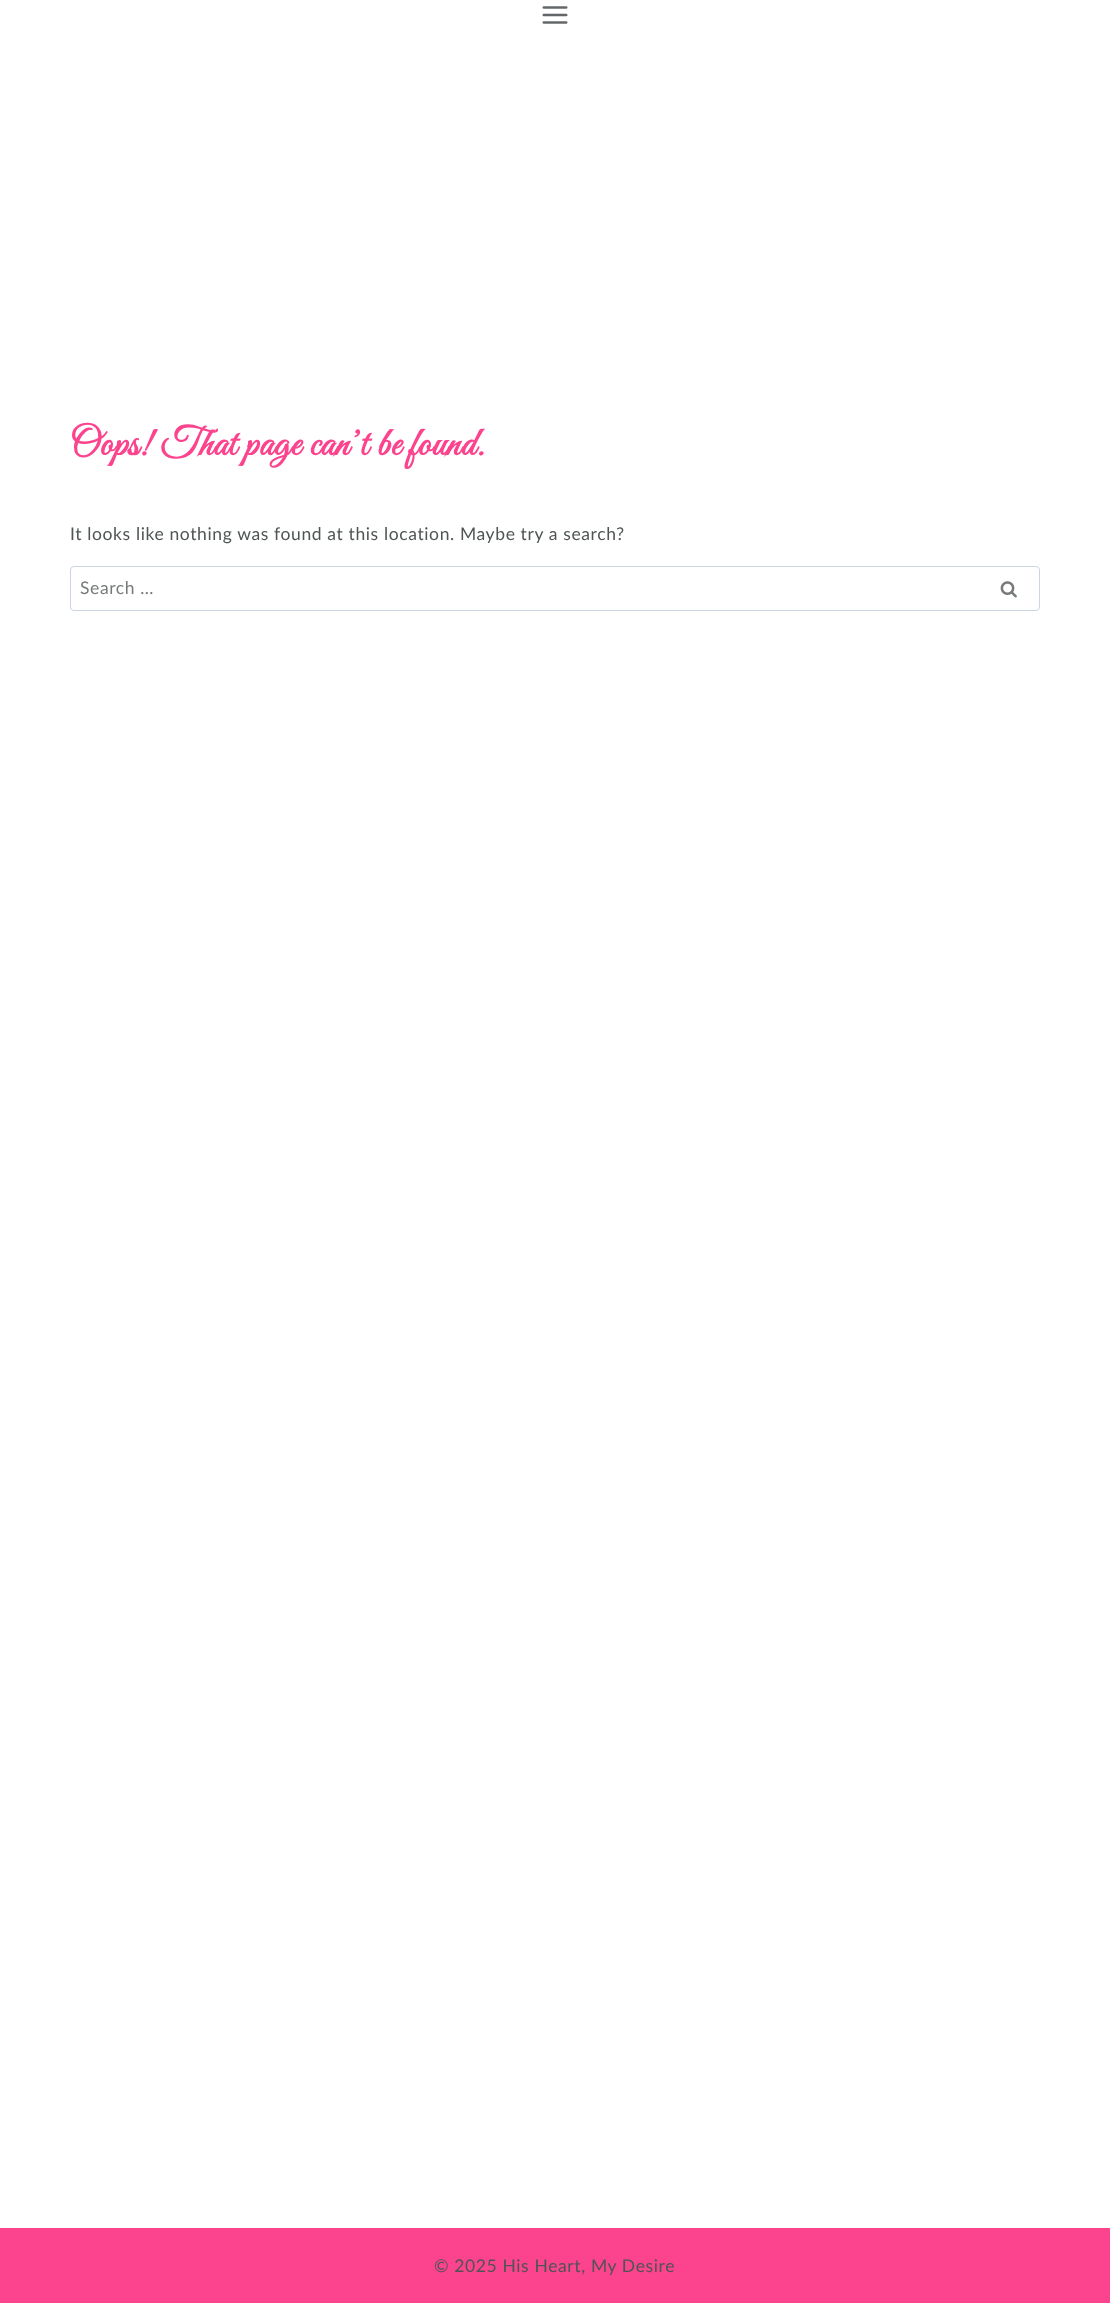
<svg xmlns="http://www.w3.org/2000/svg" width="1110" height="2303">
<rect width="100%" height="100%" fill="#fff"/>
<image x="542" y="6" width="26" height="18" href="media/1.png"/>
<text x="70" y="455" word-spacing="0.5" style="font-family:Great Vibes;font-size:40px;font-weight:bold;letter-spacing:0.62px;fill:#fc438d">Oops! That page can’t be found.</text>
<text x="70" y="540" style="font-family:Lato;font-size:17.5px;letter-spacing:0.62px;fill:#4f5455">It looks like nothing was found at this location. Maybe try a search?</text>
<rect x="70.5" y="566.5" width="969" height="44" rx="3.5" fill="none" stroke="#cbd5e0"/>
<text x="80" y="594" style="font-family:Lato;font-size:17.5px;letter-spacing:0.62px;fill:#767a7b">Search …</text>
<image x="1000" y="581" width="17" height="17" href="media/2.png"/>
<rect y="2228" width="1110" height="75" fill="#fc438d"/>
<text x="434" y="2272" style="font-family:Lato;font-size:17.5px;letter-spacing:0.62px;fill:#4f5455">© 2025 His Heart, My Desire</text>
</svg>
